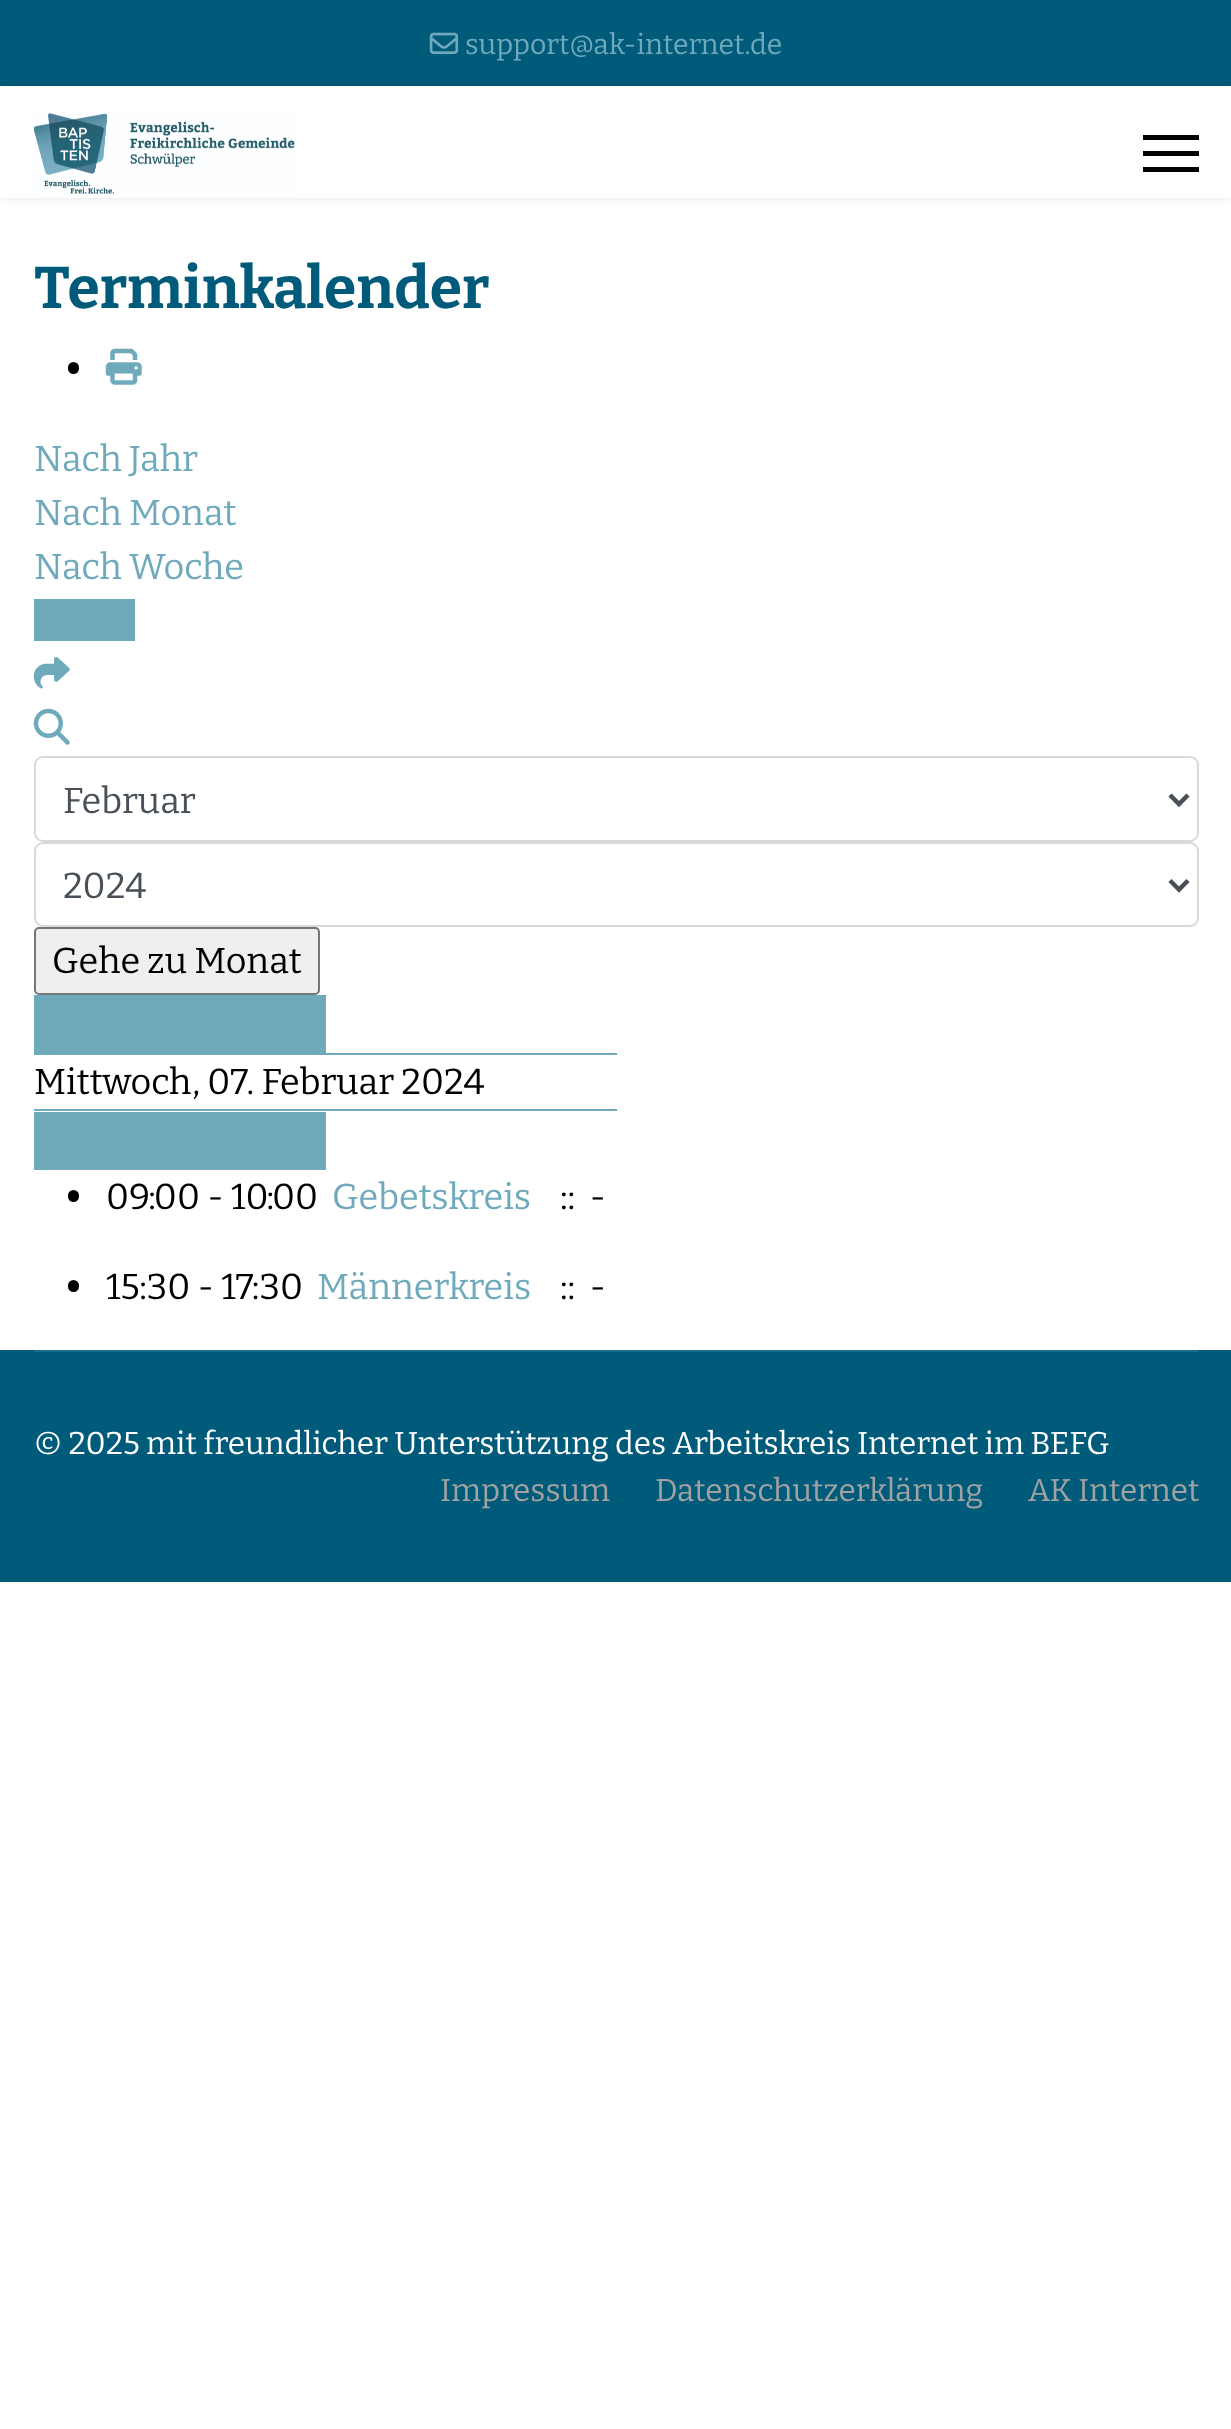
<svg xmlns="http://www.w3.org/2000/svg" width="1231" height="2429">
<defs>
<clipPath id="clip1"><path d="M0 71h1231v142h-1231zm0 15h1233v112h-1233z" clip-rule="evenodd"/></clipPath>
</defs>
<rect width="100%" height="100%" fill="#fff"/>
<rect width="1231" height="86" fill="#005a7a"/>
<image x="429" y="32" width="30" height="22" href="media/1.png"/>
<text x="465" y="54" style="font-family:Bitter;font-size:28.4px;font-weight:100;fill:#6faabc">support@ak-internet.de</text>
<g clip-path="url(#clip1)">
<rect y="86" width="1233" height="112" fill="#0000001a" filter="blur(4.5px)"/>
</g>
<image x="34" y="113" width="261" height="81" href="media/2.png"/>
<rect x="1143" y="135" width="56" height="5" fill="#000"/>
<rect x="1143" y="151" width="56" height="5" fill="#000"/>
<rect x="1143" y="167" width="56" height="5" fill="#000"/>
<text x="34" y="308" style="font-family:'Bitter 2';font-size:58.75px;font-weight:100;fill:#005a7a">Terminkalender</text>
<rect x="68" y="362" width="11" height="12" rx="5.5" fill="#000"/>
<image x="105" y="348" width="37" height="37" href="media/3.png"/>
<text x="34" y="471" style="font-family:Bitter;font-size:36px;font-weight:100;fill:#6faabc">Nach Jahr</text>
<text x="34" y="525" style="font-family:Bitter;font-size:36px;font-weight:100;fill:#6faabc">Nach Monat</text>
<text x="34" y="579" style="font-family:Bitter;font-size:36px;font-weight:100;fill:#6faabc">Nach Woche</text>
<rect x="34" y="599" width="101" height="42" fill="#6faabc"/>
<image x="33" y="657" width="37" height="32" href="media/4.png"/>
<image x="33" y="708" width="37" height="37" href="media/5.png"/>
<rect x="35" y="757" width="1163" height="84" rx="8" fill="none" stroke="#d9d9d9" stroke-width="2"/>
<path d="M1170 795l9 9l9-9" fill="none" stroke="#495057" stroke-width="4.5"/>
<text x="63" y="813" style="font-family:Bitter;font-size:36px;font-weight:100;fill:#495057">Februar</text>
<rect x="35" y="843" width="1163" height="83" rx="8" fill="none" stroke="#d9d9d9" stroke-width="2"/>
<path d="M1170 880.5l9 9l9-9" fill="none" stroke="#495057" stroke-width="4.5"/>
<text x="63" y="898" style="font-family:Bitter;font-size:36px;font-weight:100;fill:#495057">2024</text>
<rect x="35" y="928" width="284" height="66" rx="4" fill="#efefef" stroke="#767676" stroke-width="2"/>
<text x="52" y="973" style="font-family:Bitter;font-size:36px;font-weight:100;fill:#000">Gehe zu Monat</text>
<rect x="34" y="995" width="292" height="58" fill="#6faabc"/>
<rect x="34" y="1053" width="583" height="2" fill="#6faabc"/>
<rect x="34" y="1109" width="583" height="2" fill="#6faabc"/>
<text x="34" y="1094" style="font-family:Bitter;font-size:36px;font-weight:100;fill:#000">Mittwoch, 07. Februar 2024</text>
<rect x="34" y="1112" width="292" height="58" fill="#6faabc"/>
<rect x="68" y="1190" width="11" height="12" rx="5.5" fill="#000"/>
<text x="106" y="1209" style="font-family:Bitter;font-size:36px;font-weight:100;fill:#000">09:00 - 10:00</text>
<text x="332" y="1209" style="font-family:Bitter;font-size:36px;font-weight:100;fill:#6faabc">Gebetskreis</text>
<text x="560" y="1209" style="font-family:Bitter;font-size:36px;font-weight:100;fill:#000" xml:space="preserve">::  -</text>
<rect x="68" y="1280" width="11" height="12" rx="5.5" fill="#000"/>
<text x="106" y="1299" style="font-family:Bitter;font-size:36px;font-weight:100;fill:#000">15:30 - 17:30</text>
<text x="317" y="1299" style="font-family:Bitter;font-size:36px;font-weight:100;fill:#6faabc">Männerkreis</text>
<text x="560" y="1299" style="font-family:Bitter;font-size:36px;font-weight:100;fill:#000" xml:space="preserve">::  -</text>
<rect y="1350" width="1231" height="232" fill="#005a7a"/>
<rect x="34" y="1350" width="1165" height="2" fill="#1a6b87"/>
<text x="34" y="1454" style="font-family:Bitter;font-size:31.5px;font-weight:100;fill:#fff">© 2025 mit freundlicher Unterstützung des Arbeitskreis Internet im BEFG</text>
<text x="440" y="1501" style="font-family:Bitter;font-size:31.5px;font-weight:100;fill:#a2a2a2">Impressum</text>
<text x="655" y="1501" style="font-family:Bitter;font-size:31.5px;font-weight:100;fill:#a2a2a2">Datenschutzerklärung</text>
<text x="1028" y="1501" style="font-family:Bitter;font-size:31.5px;font-weight:100;fill:#a2a2a2">AK Internet</text>
</svg>
